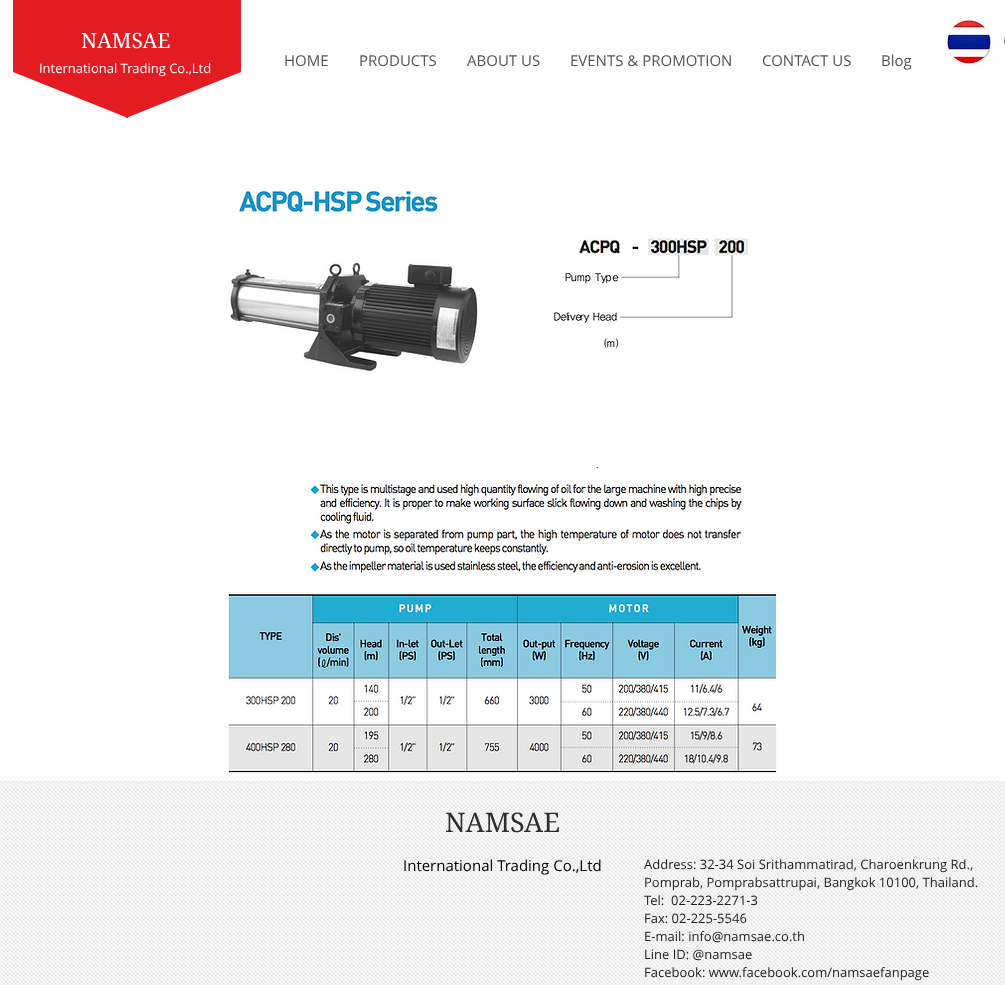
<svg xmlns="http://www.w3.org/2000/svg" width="1005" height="985">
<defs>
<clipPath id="clip1"><rect x="13" width="228" height="119"/></clipPath>
</defs>
<rect width="100%" height="100%" fill="#fff"/>
<g clip-path="url(#clip1)">
<path d="M126 118v-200h500z" fill="#e21c21"/>
<path d="M128-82v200l-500-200z" fill="#e21c21"/>
</g>
<text x="81" y="48" style="font-family:'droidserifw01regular';font-size:21px;fill:#fff">NAMSAE</text>
<text x="39" y="73" style="font-family:Open Sans;font-size:13px;fill:#fff">International Trading Co.,Ltd</text>
<image x="946" y="19" width="48" height="48" href="media/1.png"/>
<image x="1004" y="35" width="1" height="14" href="media/2.png"/>
<text x="284" y="66" style="font-family:Open Sans;font-size:15px;fill:#555353">HOME</text>
<text x="359" y="66" style="font-family:Open Sans;font-size:15px;fill:#555353">PRODUCTS</text>
<text x="467" y="66" style="font-family:Open Sans;font-size:15px;fill:#555353">ABOUT US</text>
<text x="570" y="66" style="font-family:Open Sans;font-size:15px;fill:#555353">EVENTS &amp; PROMOTION</text>
<text x="762" y="66" style="font-family:Open Sans;font-size:15px;fill:#555353">CONTACT US</text>
<text x="881" y="66" style="font-family:Open Sans;font-size:15px;fill:#555353">Blog</text>
<image x="228" y="190" width="549" height="583" href="media/3.png"/>
<image x="0" y="781" width="1005" height="204" href="media/4.png"/>
<text x="445" y="832" style="font-family:'droidserifw01regular';font-size:27px;fill:#2f2e2e">NAMSAE</text>
<text x="403" y="871" style="font-family:Open Sans;font-size:15px;fill:#000">International Trading Co.,Ltd</text>
<text x="644" y="869" style="font-family:Open Sans;font-size:13px;fill:#222">Address: 32-34 Soi Srithammatirad, Charoenkrung Rd.,</text>
<text x="644" y="887" style="font-family:Open Sans;font-size:13px;fill:#222">Pomprab, Pomprabsattrupai, Bangkok 10100, Thailand.</text>
<text x="644" y="905" style="font-family:Open Sans;font-size:13px;fill:#222" xml:space="preserve">Tel:  02-223-2271-3</text>
<text x="644" y="923" style="font-family:Open Sans;font-size:13px;fill:#222">Fax: 02-225-5546</text>
<text x="644" y="941" style="font-family:Open Sans;font-size:13px;fill:#222">E-mail: info@namsae.co.th</text>
<text x="644" y="959" style="font-family:Open Sans;font-size:13px;fill:#222">Line ID: @namsae</text>
<text x="644" y="977" style="font-family:Open Sans;font-size:13px;fill:#222">Facebook: www.facebook.com/namsaefanpage</text>
</svg>
